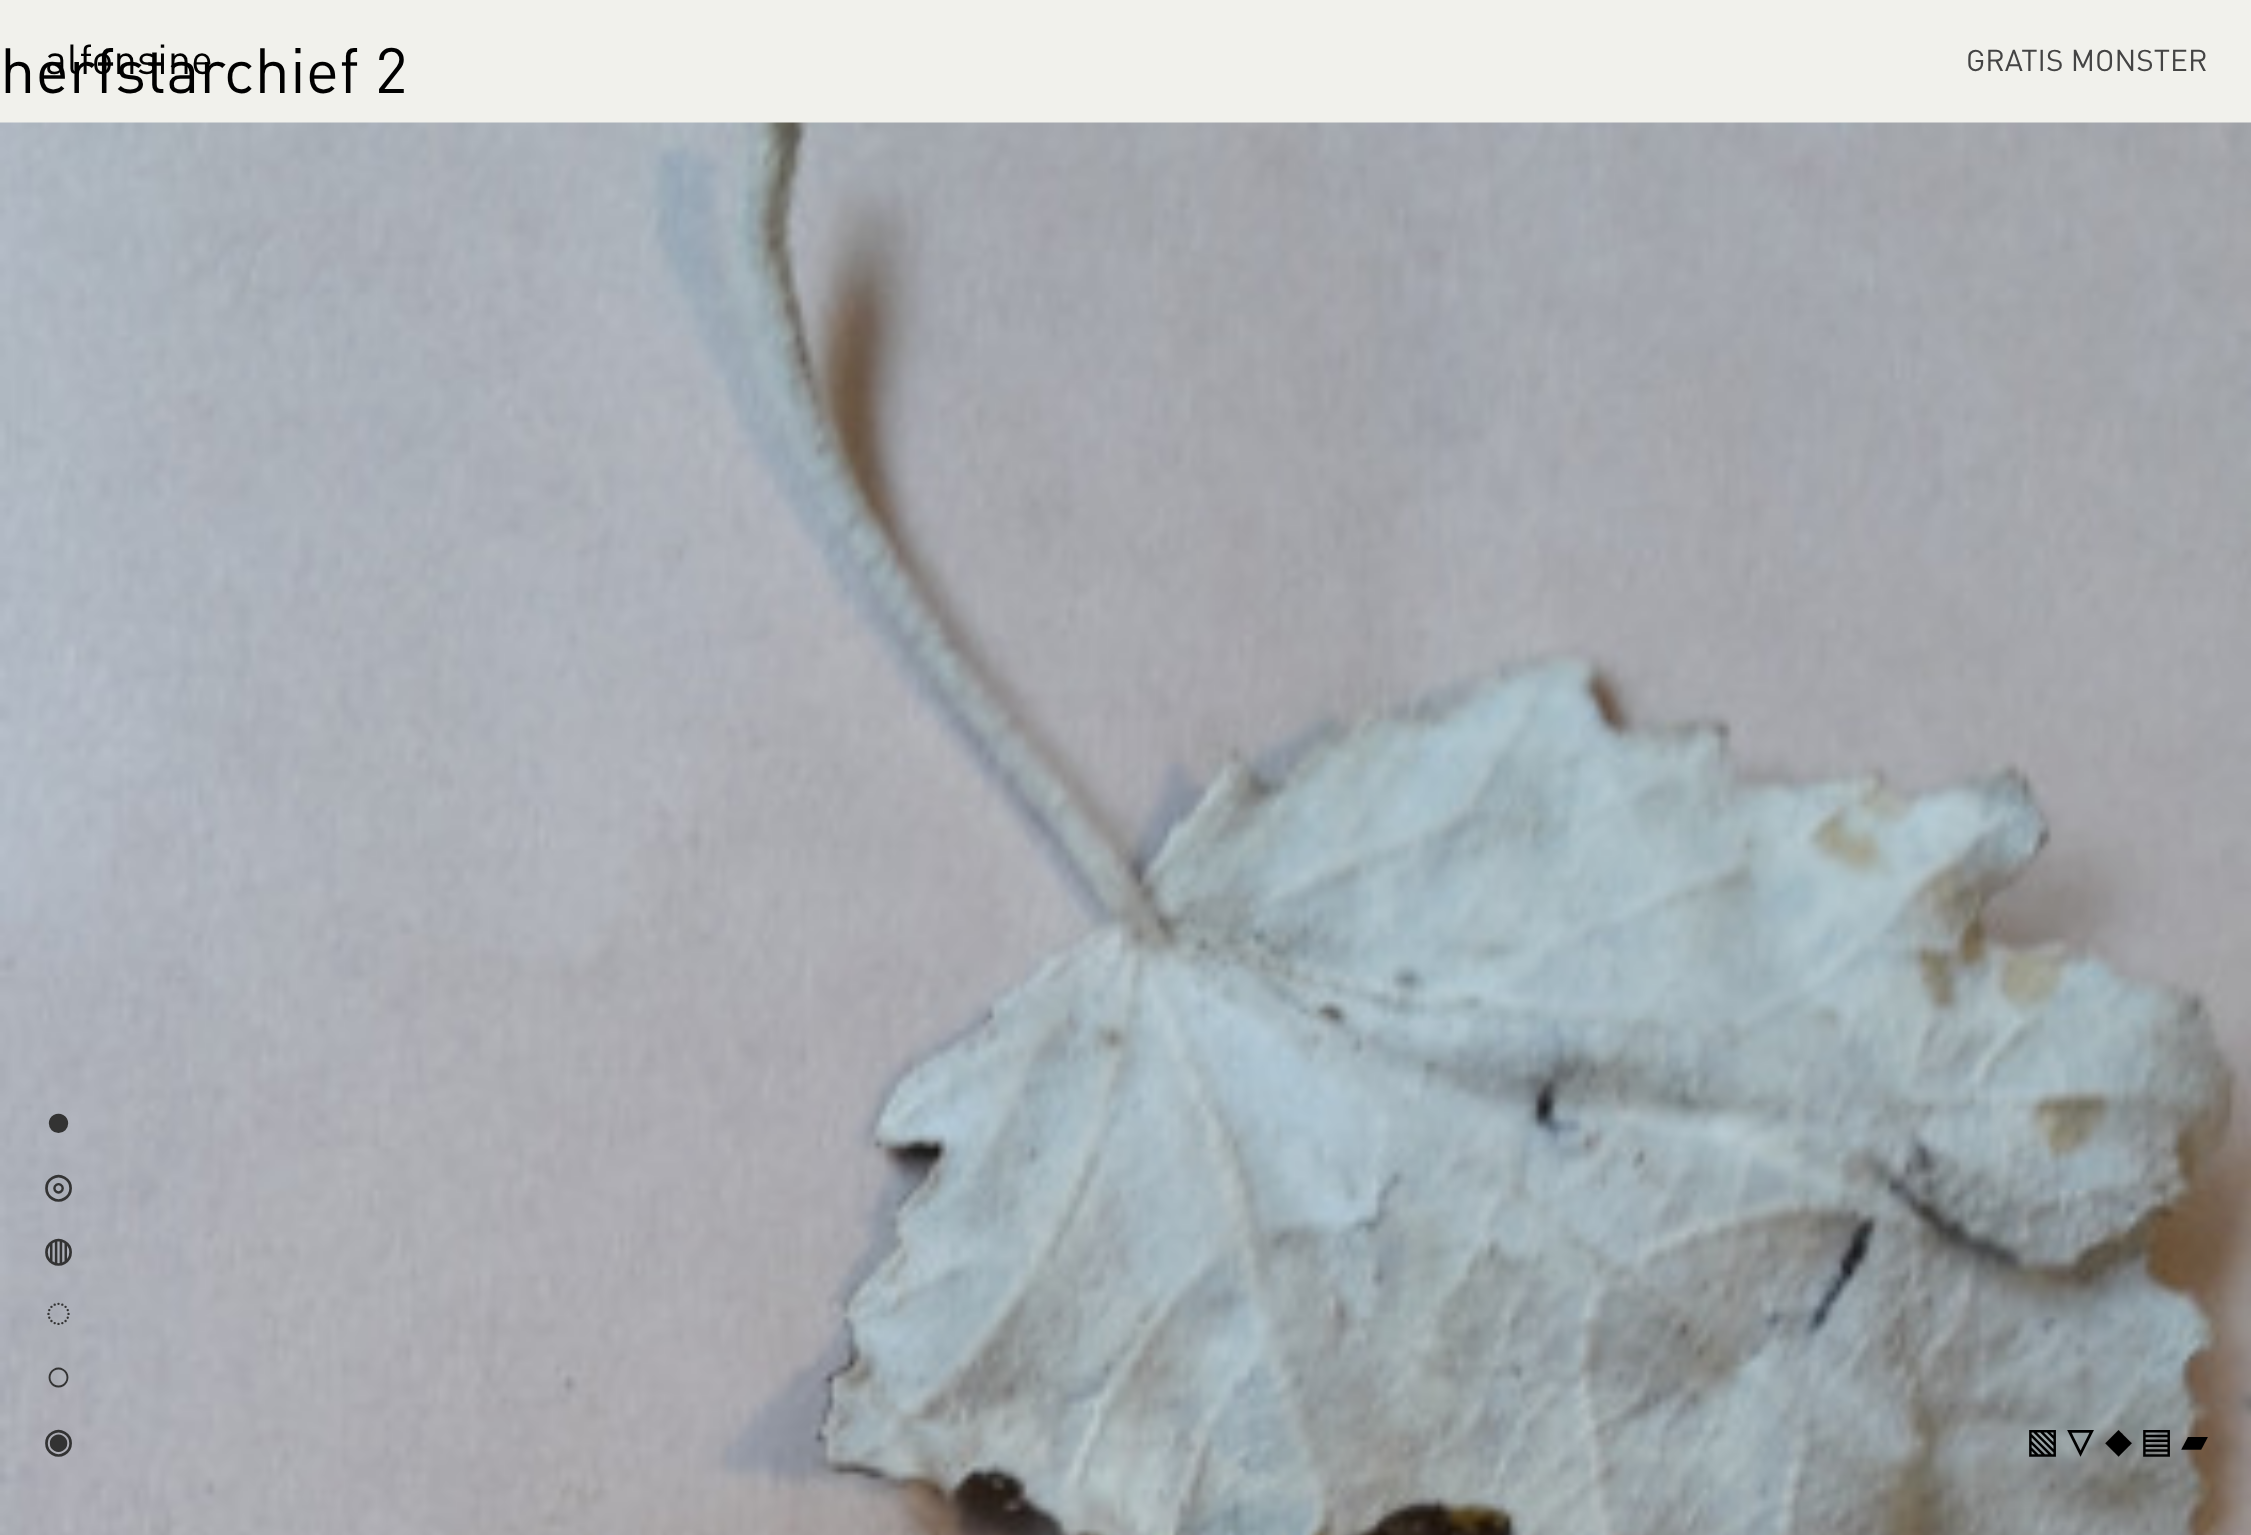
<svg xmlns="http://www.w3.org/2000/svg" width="2251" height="1535">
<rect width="100%" height="100%" fill="#f1f1ec"/>
<text x="0" y="93" style="font-family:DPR;font-size:63px;fill:#000">herfstarchief 2</text>
<text x="45" y="74" style="font-family:DPR;font-size:41.5px;fill:#000">alfonsine</text>
<text x="1966" y="71" style="font-family:DPR;font-size:29.75px;fill:#444">GRATIS MONSTER</text>
<image x="0" y="122" width="2251" height="1413" href="media/1.png"/>
<text x="45" y="1136" style="font-family:Liberation Mono;font-size:45px;fill:#333">●</text>
<text x="45" y="1200" style="font-family:DejaVu Sans Mono;font-size:45px;fill:#333">◎</text>
<text x="45" y="1264" style="font-family:DejaVu Sans Mono;font-size:45px;fill:#333">◍</text>
<text x="45" y="1327" style="font-family:Liberation Mono;font-size:45px;fill:#333">◌</text>
<text x="45" y="1391" style="font-family:Liberation Mono;font-size:45px;fill:#333">○</text>
<text x="45" y="1455" style="font-family:DejaVu Sans Mono;font-size:45px;fill:#333">◉</text>
<text x="2029" y="1455" style="font-family:DejaVu Sans Mono;font-size:45px;fill:#000">▧</text>
<text x="2067" y="1455" style="font-family:DejaVu Sans Mono;font-size:45px;fill:#000">▽</text>
<text x="2105" y="1455" style="font-family:DejaVu Sans Mono;font-size:45px;fill:#000">◆</text>
<text x="2143" y="1455" style="font-family:DejaVu Sans Mono;font-size:45px;fill:#000">▤</text>
<text x="2181" y="1455" style="font-family:DejaVu Sans Mono;font-size:45px;fill:#000">▰</text>
</svg>
